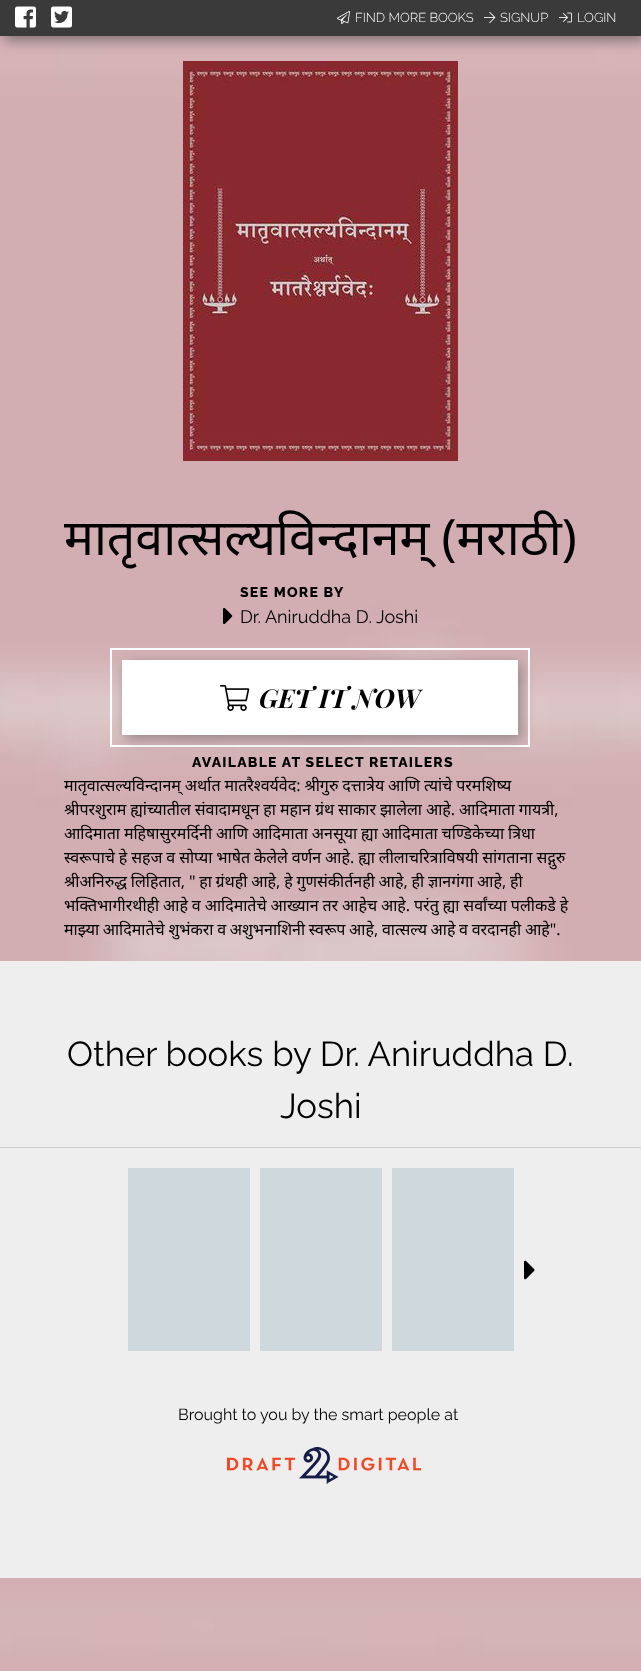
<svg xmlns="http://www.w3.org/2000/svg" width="641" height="1671">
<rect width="100%" height="100%" fill="#fff"/>
<image x="0" y="36" width="641" height="1635" href="media/1.png"/>
<image x="183" y="61" width="275" height="400" href="media/7.png"/>
<rect x="4" y="4" width="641" height="36" fill="#00000066" filter="blur(7px)"/>
<rect width="641" height="36" fill="#3a3a3a"/>
<image x="15" y="6" width="21" height="22" href="media/2.png"/>
<image x="51" y="6" width="21" height="22" href="media/3.png"/>
<image x="337" y="11" width="13" height="13" href="media/4.png"/>
<text x="355" y="22" style="font-family:Raleway;font-size:13px;font-weight:300;fill:#fff">FIND MORE BOOKS</text>
<image x="484" y="11" width="12" height="13" href="media/5.png"/>
<text x="500" y="22" style="font-family:Raleway;font-size:13px;font-weight:300;fill:#fff">SIGNUP</text>
<image x="559" y="12" width="13" height="11" href="media/6.png"/>
<text x="577" y="22" style="font-family:Raleway;font-size:13px;font-weight:300;fill:#fff">LOGIN</text>
<text x="64" y="555" word-spacing="-1" style="font-family:Noto Sans;font-size:50px;fill:#000">मातृवात्सल्यविन्दानम् (मराठी)</text>
<image x="223" y="607" width="10" height="18" href="media/8.png"/>
<text x="240" y="597" style="font-family:Raleway;font-size:14px;font-weight:800;letter-spacing:1.25px;fill:#000">SEE MORE BY</text>
<text x="240" y="623" style="font-family:Raleway;font-size:18px;fill:#000">Dr. Aniruddha D. Joshi</text>
<rect x="111" y="649" width="418" height="97" fill="none" stroke="#fff" stroke-width="2"/>
<rect x="126" y="664" width="396" height="75" fill="#0000004d" filter="blur(7px)"/>
<rect x="122" y="660" width="396" height="75" fill="#fff"/>
<image x="220" y="685" width="30" height="26" href="media/9.png"/>
<text x="259" y="708" style="font-family:Playfair Display;font-size:26px;font-weight:bold;font-style:italic;fill:#000">GET IT NOW</text>
<text x="192" y="767" style="font-family:Raleway;font-size:14px;font-weight:800;letter-spacing:1.25px;fill:#000">AVAILABLE AT SELECT RETAILERS</text>
<text x="64" y="791" word-spacing="-0.25" style="font-family:Noto Sans;font-size:16px;fill:#000">मातृवात्सल्यविन्दानम्‌ अर्थात मातरैश्वर्यवेद: श्रीगुरु दत्तात्रेय आणि त्यांचे परमशिष्य</text>
<text x="64" y="815" word-spacing="-0.25" style="font-family:Noto Sans;font-size:16px;fill:#000">श्रीपरशुराम ह्यांच्यातील संवादामधून हा महान ग्रंथ साकार झालेला आहे. आदिमाता गायत्री,</text>
<text x="64" y="839" word-spacing="-0.25" style="font-family:Noto Sans;font-size:16px;fill:#000">आदिमाता महिषासुरमर्दिनी आणि आदिमाता अनसूया ह्या आदिमाता चण्डिकेच्या त्रिधा</text>
<text x="64" y="863" word-spacing="-0.25" style="font-family:Noto Sans;font-size:16px;fill:#000">स्वरूपाचे हे सहज व सोप्या भाषेत केलेले वर्णन आहे. ह्या लीलाचरित्राविषयी सांगताना सद्गुरु</text>
<text x="64" y="887" word-spacing="-0.4" style="font-family:Noto Sans;font-size:16px;fill:#000">श्रीअनिरुद्ध लिहितात, " हा ग्रंथही आहे, हे गुणसंकीर्तनही आहे, ही ज्ञानगंगा आहे, ही</text>
<text x="64" y="911" word-spacing="-0.25" style="font-family:Noto Sans;font-size:16px;fill:#000">भक्तिभागीरथीही आहे व आदिमातेचे आख्यान तर आहेच आहे. परंतु ह्या सर्वांच्या पलीकडे हे</text>
<text x="64" y="935" word-spacing="-0.5" style="font-family:Noto Sans;font-size:16px;fill:#000">माझ्या आदिमातेचे शुभंकरा व अशुभनाशिनी स्वरूप आहे, वात्सल्य आहे व वरदानही आहे".</text>
<rect y="961" width="641" height="41" fill="#eee"/>
<rect y="1002" width="641" height="576" fill="#eee"/>
<text x="67" y="1066" style="font-family:Raleway;font-size:34.7px;fill:#000">Other books by Dr. Aniruddha D.</text>
<text x="280" y="1118" style="font-family:Raleway;font-size:34.7px;fill:#000">Joshi</text>
<rect y="1147" width="641" height="1" fill="#ccc"/>
<rect x="128" y="1168" width="122" height="183" fill="#cfd8dc"/>
<rect x="260" y="1168" width="122" height="183" fill="#cfd8dc"/>
<rect x="392" y="1168" width="122" height="183" fill="#cfd8dc"/>
<image x="524" y="1260" width="11" height="20" href="media/10.png"/>
<text x="178" y="1420" style="font-family:Raleway;font-size:16px;fill:#000">Brought to you by the smart people at</text>
<image x="227" y="1447" width="194" height="37" href="media/11.png"/>
</svg>
